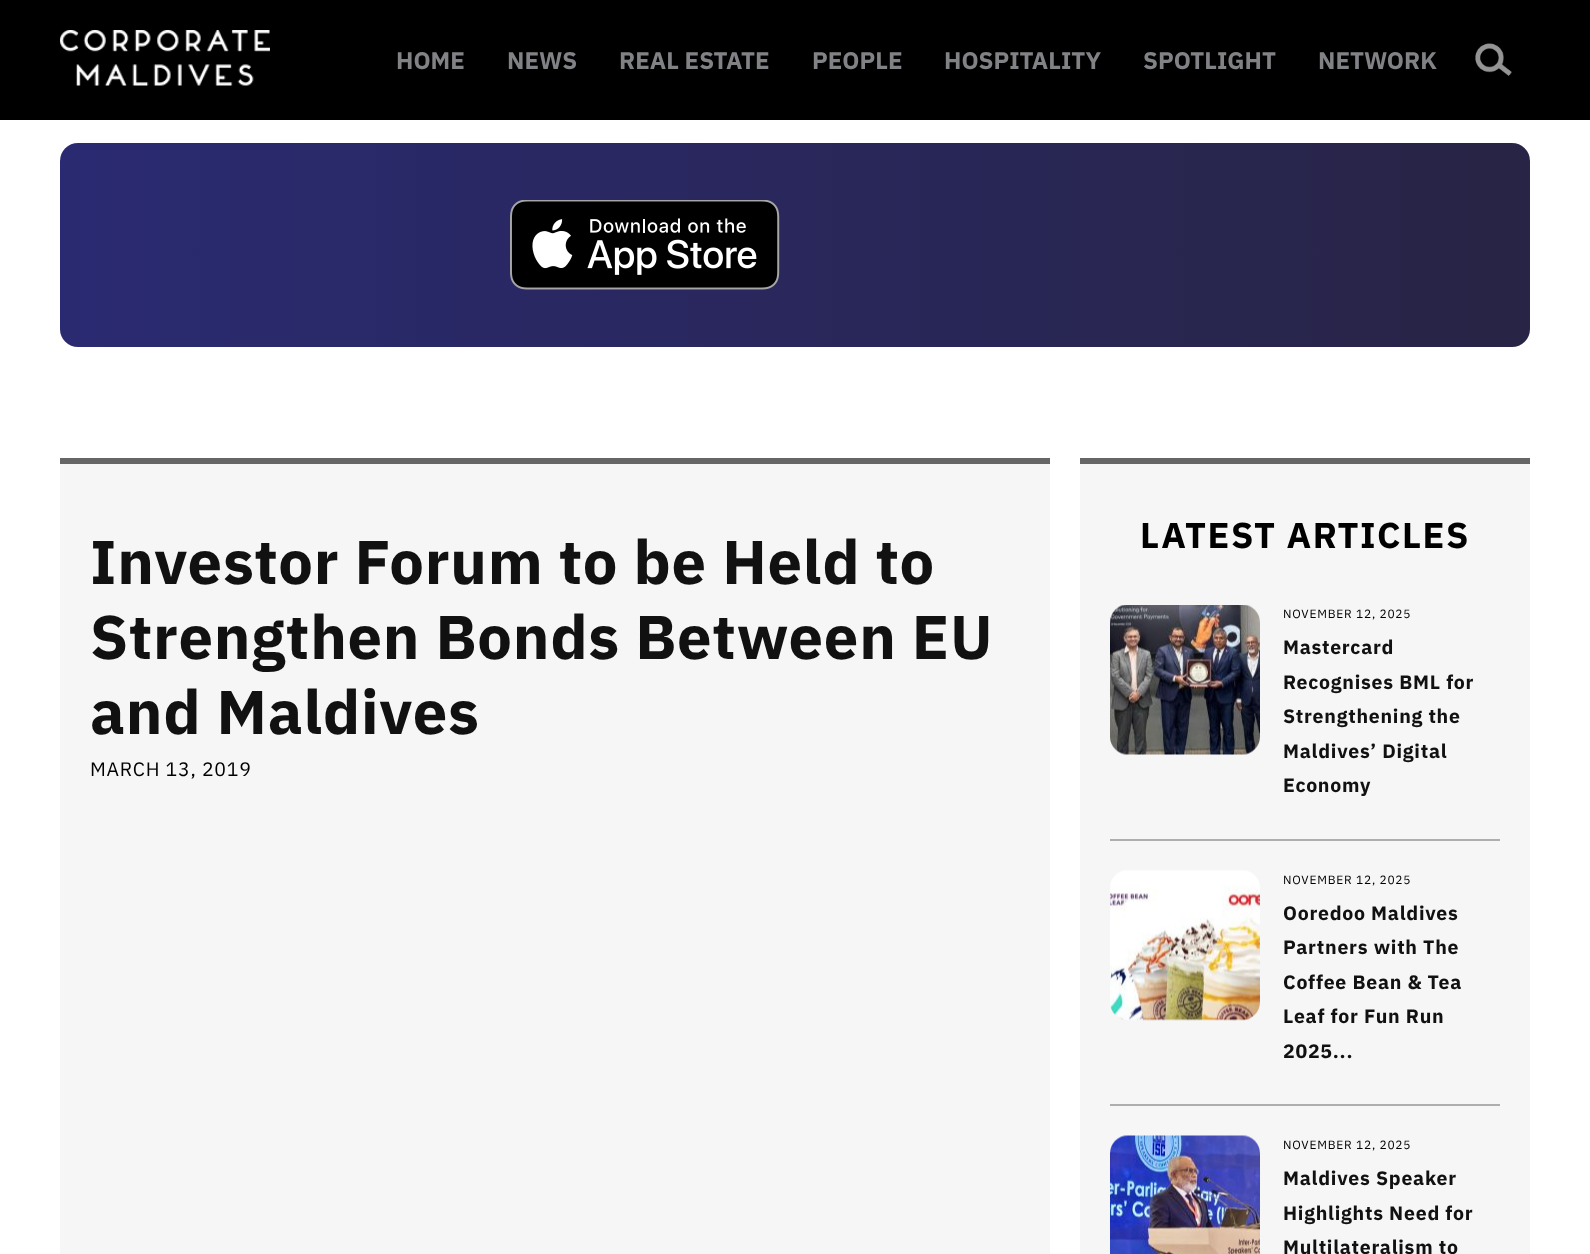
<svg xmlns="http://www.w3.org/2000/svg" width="1590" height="1254">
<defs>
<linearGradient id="g1" gradientUnits="userSpaceOnUse" x1="60" y1="245" x2="1530" y2="244"><stop offset="0" stop-color="#2a2a72"/><stop offset="1" stop-color="#282445"/></linearGradient>
</defs>
<rect width="100%" height="100%" fill="#fff"/>
<rect width="1590" height="120" fill="#000"/>
<image x="60" y="30" width="210" height="56" href="media/1.png"/>
<text x="396" y="69" style="font-family:IBM Plex Sans;font-size:24px;font-weight:bold;fill:#808285">HOME</text>
<text x="507" y="69" style="font-family:IBM Plex Sans;font-size:24px;font-weight:bold;fill:#808285">NEWS</text>
<text x="619" y="69" style="font-family:IBM Plex Sans;font-size:24px;font-weight:bold;fill:#808285">REAL ESTATE</text>
<text x="812" y="69" style="font-family:IBM Plex Sans;font-size:24px;font-weight:bold;fill:#808285">PEOPLE</text>
<text x="944" y="69" style="font-family:IBM Plex Sans;font-size:24px;font-weight:bold;fill:#808285">HOSPITALITY</text>
<text x="1143" y="69" style="font-family:IBM Plex Sans;font-size:24px;font-weight:bold;fill:#808285">SPOTLIGHT</text>
<text x="1318" y="69" style="font-family:IBM Plex Sans;font-size:24px;font-weight:bold;fill:#808285">NETWORK</text>
<image x="1475" y="43" width="37" height="33" href="media/2.png"/>
<rect x="60" y="143" width="1470" height="204" rx="18" fill="url(#g1)"/>
<image x="510" y="200" width="270" height="90" href="media/3.png"/>
<rect x="60" y="464" width="990" height="790" fill="#f6f6f6"/>
<rect x="60" y="458" width="990" height="6" fill="#666"/>
<text x="90" y="584" style="font-family:IBM Plex Sans;font-size:61.5px;font-weight:bold;letter-spacing:0.75px;fill:#111">Investor Forum to be Held to</text>
<text x="90" y="659" style="font-family:IBM Plex Sans;font-size:61.5px;font-weight:bold;letter-spacing:0.75px;fill:#111">Strengthen Bonds Between EU</text>
<text x="90" y="734" style="font-family:IBM Plex Sans;font-size:61.5px;font-weight:bold;letter-spacing:0.75px;fill:#111">and Maldives</text>
<text x="90" y="776" style="font-family:IBM Plex Sans;font-size:19.5px;letter-spacing:0.75px;fill:#000">MARCH 13, 2019</text>
<rect x="1080" y="464" width="450" height="790" fill="#f6f6f6"/>
<rect x="1080" y="458" width="450" height="6" fill="#666"/>
<text x="1140" y="548" style="font-family:IBM Plex Sans;font-size:36px;font-weight:bold;letter-spacing:1.5px;fill:#000">LATEST ARTICLES</text>
<rect x="1110" y="839" width="390" height="2" fill="#aeaeae"/>
<image x="1110" y="605" width="150" height="150" href="media/4.png"/>
<text x="1283" y="618" style="font-family:IBM Plex Sans;font-size:12px;letter-spacing:0.75px;fill:#000">NOVEMBER 12, 2025</text>
<text x="1283" y="654" style="font-family:IBM Plex Sans;font-size:19.5px;font-weight:bold;letter-spacing:0.75px;fill:#111">Mastercard</text>
<text x="1283" y="689" style="font-family:IBM Plex Sans;font-size:19.5px;font-weight:bold;letter-spacing:0.75px;fill:#111">Recognises BML for</text>
<text x="1283" y="723" style="font-family:IBM Plex Sans;font-size:19.5px;font-weight:bold;letter-spacing:0.75px;fill:#111">Strengthening the</text>
<text x="1283" y="758" style="font-family:IBM Plex Sans;font-size:19.5px;font-weight:bold;letter-spacing:0.75px;fill:#111">Maldives’ Digital</text>
<text x="1283" y="792" style="font-family:IBM Plex Sans;font-size:19.5px;font-weight:bold;letter-spacing:0.75px;fill:#111">Economy</text>
<rect x="1110" y="1104" width="390" height="2" fill="#aeaeae"/>
<image x="1110" y="870" width="150" height="151" href="media/5.png"/>
<text x="1283" y="884" style="font-family:IBM Plex Sans;font-size:12px;letter-spacing:0.75px;fill:#000">NOVEMBER 12, 2025</text>
<text x="1283" y="920" style="font-family:IBM Plex Sans;font-size:19.5px;font-weight:bold;letter-spacing:0.75px;fill:#111">Ooredoo Maldives</text>
<text x="1283" y="954" style="font-family:IBM Plex Sans;font-size:19.5px;font-weight:bold;letter-spacing:0.75px;fill:#111">Partners with The</text>
<text x="1283" y="989" style="font-family:IBM Plex Sans;font-size:19.5px;font-weight:bold;letter-spacing:0.75px;fill:#111">Coffee Bean &amp; Tea</text>
<text x="1283" y="1023" style="font-family:IBM Plex Sans;font-size:19.5px;font-weight:bold;letter-spacing:0.75px;fill:#111">Leaf for Fun Run</text>
<text x="1283" y="1058" style="font-family:IBM Plex Sans;font-size:19.5px;font-weight:bold;letter-spacing:0.75px;fill:#111">2025...</text>
<image x="1110" y="1135" width="150" height="119" href="media/6.png"/>
<text x="1283" y="1149" style="font-family:IBM Plex Sans;font-size:12px;letter-spacing:0.75px;fill:#000">NOVEMBER 12, 2025</text>
<text x="1283" y="1185" style="font-family:IBM Plex Sans;font-size:19.5px;font-weight:bold;letter-spacing:0.75px;fill:#111">Maldives Speaker</text>
<text x="1283" y="1220" style="font-family:IBM Plex Sans;font-size:19.5px;font-weight:bold;letter-spacing:0.75px;fill:#111">Highlights Need for</text>
<text x="1283" y="1254" style="font-family:IBM Plex Sans;font-size:19.5px;font-weight:bold;letter-spacing:0.75px;fill:#111">Multilateralism to</text>
</svg>
